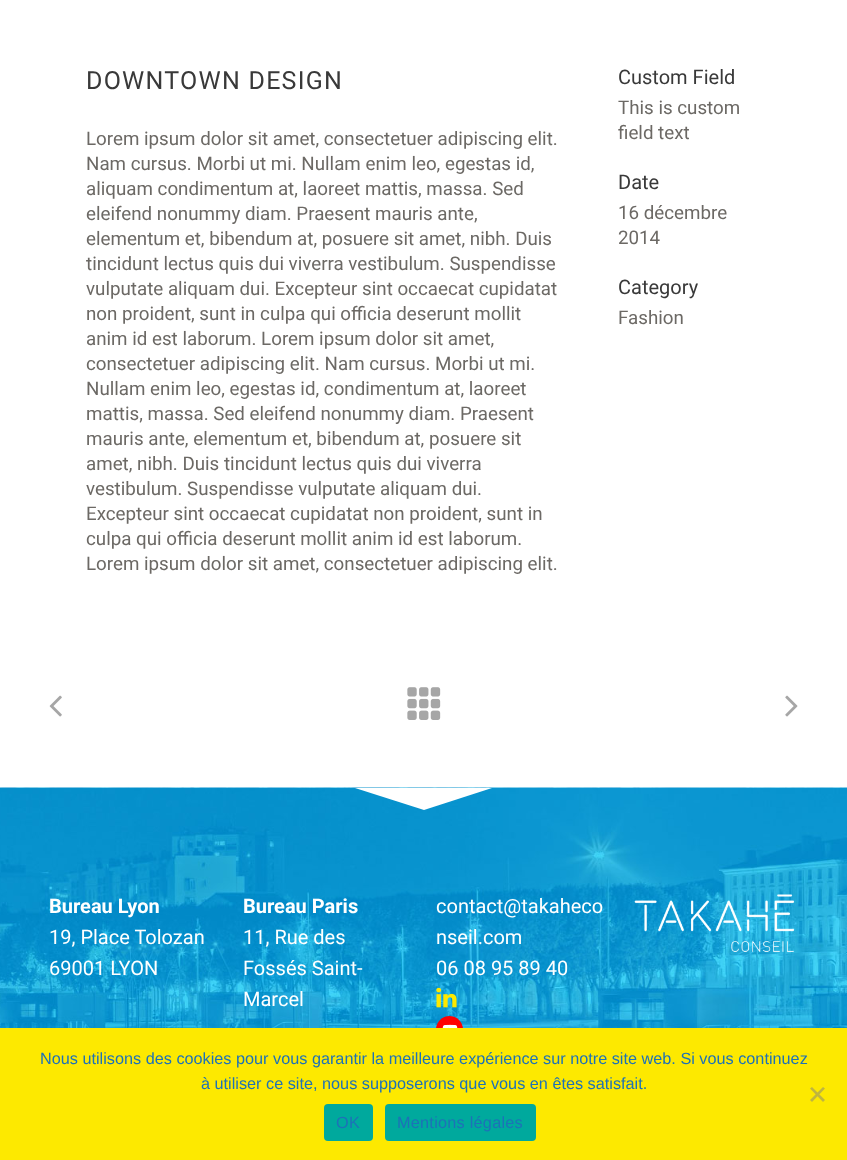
<svg xmlns="http://www.w3.org/2000/svg" width="847" height="1160">
<rect width="100%" height="100%" fill="#fff"/>
<text x="86" y="89" style="font-family:Roboto;font-size:25px;letter-spacing:1.25px;fill:#393939">DOWNTOWN DESIGN</text>
<text x="86" y="145" style="font-family:Roboto;font-size:18.75px;fill:#6c6965">Lorem ipsum dolor sit amet, consectetuer adipiscing elit.</text>
<text x="86" y="170" style="font-family:Roboto;font-size:18.75px;fill:#6c6965">Nam cursus. Morbi ut mi. Nullam enim leo, egestas id,</text>
<text x="86" y="195" style="font-family:Roboto;font-size:18.75px;fill:#6c6965">aliquam condimentum at, laoreet mattis, massa. Sed</text>
<text x="86" y="220" style="font-family:Roboto;font-size:18.75px;fill:#6c6965">eleifend nonummy diam. Praesent mauris ante,</text>
<text x="86" y="245" style="font-family:Roboto;font-size:18.75px;fill:#6c6965">elementum et, bibendum at, posuere sit amet, nibh. Duis</text>
<text x="86" y="270" style="font-family:Roboto;font-size:18.75px;fill:#6c6965">tincidunt lectus quis dui viverra vestibulum. Suspendisse</text>
<text x="86" y="295" style="font-family:Roboto;font-size:18.75px;fill:#6c6965">vulputate aliquam dui. Excepteur sint occaecat cupidatat</text>
<text x="86" y="320" style="font-family:Roboto;font-size:18.75px;fill:#6c6965">non proident, sunt in culpa qui officia deserunt mollit</text>
<text x="86" y="345" style="font-family:Roboto;font-size:18.75px;fill:#6c6965">anim id est laborum. Lorem ipsum dolor sit amet,</text>
<text x="86" y="370" style="font-family:Roboto;font-size:18.75px;fill:#6c6965">consectetuer adipiscing elit. Nam cursus. Morbi ut mi.</text>
<text x="86" y="395" style="font-family:Roboto;font-size:18.75px;fill:#6c6965">Nullam enim leo, egestas id, condimentum at, laoreet</text>
<text x="86" y="420" style="font-family:Roboto;font-size:18.75px;fill:#6c6965">mattis, massa. Sed eleifend nonummy diam. Praesent</text>
<text x="86" y="445" style="font-family:Roboto;font-size:18.75px;fill:#6c6965">mauris ante, elementum et, bibendum at, posuere sit</text>
<text x="86" y="470" style="font-family:Roboto;font-size:18.75px;fill:#6c6965">amet, nibh. Duis tincidunt lectus quis dui viverra</text>
<text x="86" y="495" style="font-family:Roboto;font-size:18.75px;fill:#6c6965">vestibulum. Suspendisse vulputate aliquam dui.</text>
<text x="86" y="520" style="font-family:Roboto;font-size:18.75px;fill:#6c6965">Excepteur sint occaecat cupidatat non proident, sunt in</text>
<text x="86" y="545" style="font-family:Roboto;font-size:18.75px;fill:#6c6965">culpa qui officia deserunt mollit anim id est laborum.</text>
<text x="86" y="570" style="font-family:Roboto;font-size:18.75px;fill:#6c6965">Lorem ipsum dolor sit amet, consectetuer adipiscing elit.</text>
<text x="618" y="84" style="font-family:Roboto;font-size:20px;fill:#393939">Custom Field</text>
<text x="618" y="114" style="font-family:Roboto;font-size:18.75px;fill:#6c6965">This is custom</text>
<text x="618" y="139" style="font-family:Roboto;font-size:18.75px;fill:#6c6965">field text</text>
<text x="618" y="189" style="font-family:Roboto;font-size:20px;fill:#393939">Date</text>
<text x="618" y="219" style="font-family:Roboto;font-size:18.75px;fill:#6c6965">16 décembre</text>
<text x="618" y="244" style="font-family:Roboto;font-size:18.75px;fill:#6c6965">2014</text>
<text x="618" y="294" style="font-family:Roboto;font-size:20px;fill:#393939">Category</text>
<text x="618" y="324" style="font-family:Roboto;font-size:18.75px;fill:#6c6965">Fashion</text>
<image x="49" y="695" width="13" height="22" href="media/1.png"/>
<image x="407" y="687" width="34" height="33" href="media/2.png"/>
<image x="785" y="695" width="13" height="22" href="media/3.png"/>
<image x="0" y="787" width="847" height="241" href="media/4.png"/>
<path d="M355 788h137l-68 22z" fill="#fff"/>
<text x="49" y="913" style="font-family:Roboto;font-size:20px;font-weight:bold;fill:#fff">Bureau Lyon</text>
<text x="49" y="944" style="font-family:Roboto;font-size:20px;fill:#fff">19, Place Tolozan</text>
<text x="49" y="975" style="font-family:Roboto;font-size:20px;fill:#fff">69001 LYON</text>
<text x="243" y="913" style="font-family:Roboto;font-size:20px;font-weight:bold;fill:#fff">Bureau Paris</text>
<text x="243" y="944" style="font-family:Roboto;font-size:20px;fill:#fff">11, Rue des</text>
<text x="243" y="975" style="font-family:Roboto;font-size:20px;fill:#fff">Fossés Saint-</text>
<text x="243" y="1006" style="font-family:Roboto;font-size:20px;fill:#fff">Marcel</text>
<text x="436" y="913" style="font-family:Roboto;font-size:20px;fill:#fff">contact@takaheco</text>
<text x="436" y="944" style="font-family:Roboto;font-size:20px;fill:#fff">nseil.com</text>
<text x="436" y="975" style="font-family:Roboto;font-size:20px;fill:#fff">06 08 95 89 40</text>
<image x="436" y="987" width="21" height="21" href="media/5.png"/>
<circle cx="449.5" cy="1029.5" r="13.5" fill="#f00"/>
<image x="442" y="1024" width="16" height="4" href="media/6.png"/>
<image x="634" y="894" width="161" height="58" href="media/7.png"/>
<rect y="1028" width="847" height="132" fill="#fde900"/>
<text x="40" y="1064" style="font-family:Liberation Sans;font-size:16.25px;fill:#1d71b8">Nous utilisons des cookies pour vous garantir la meilleure expérience sur notre site web. Si vous continuez</text>
<text x="201" y="1089" style="font-family:Liberation Sans;font-size:16.25px;fill:#1d71b8">à utiliser ce site, nous supposerons que vous en êtes satisfait.</text>
<path d="M823 1087l2 1.5l-13 13.5l-2-2z" fill="#bfb540"/>
<path d="M810 1088.5l2-1.5l13 13l-2 2z" fill="#bfb540"/>
<rect x="324" y="1104" width="49" height="37" rx="4" fill="#00a99d"/>
<text x="336" y="1128" style="font-family:Liberation Sans;font-size:16.25px;letter-spacing:0.25px;fill:#1d71b8">OK</text>
<rect x="385" y="1104" width="151" height="37" rx="4" fill="#00a99d"/>
<text x="397" y="1128" style="font-family:Liberation Sans;font-size:16.25px;letter-spacing:0.25px;fill:#1d71b8">Mentions légales</text>
</svg>
